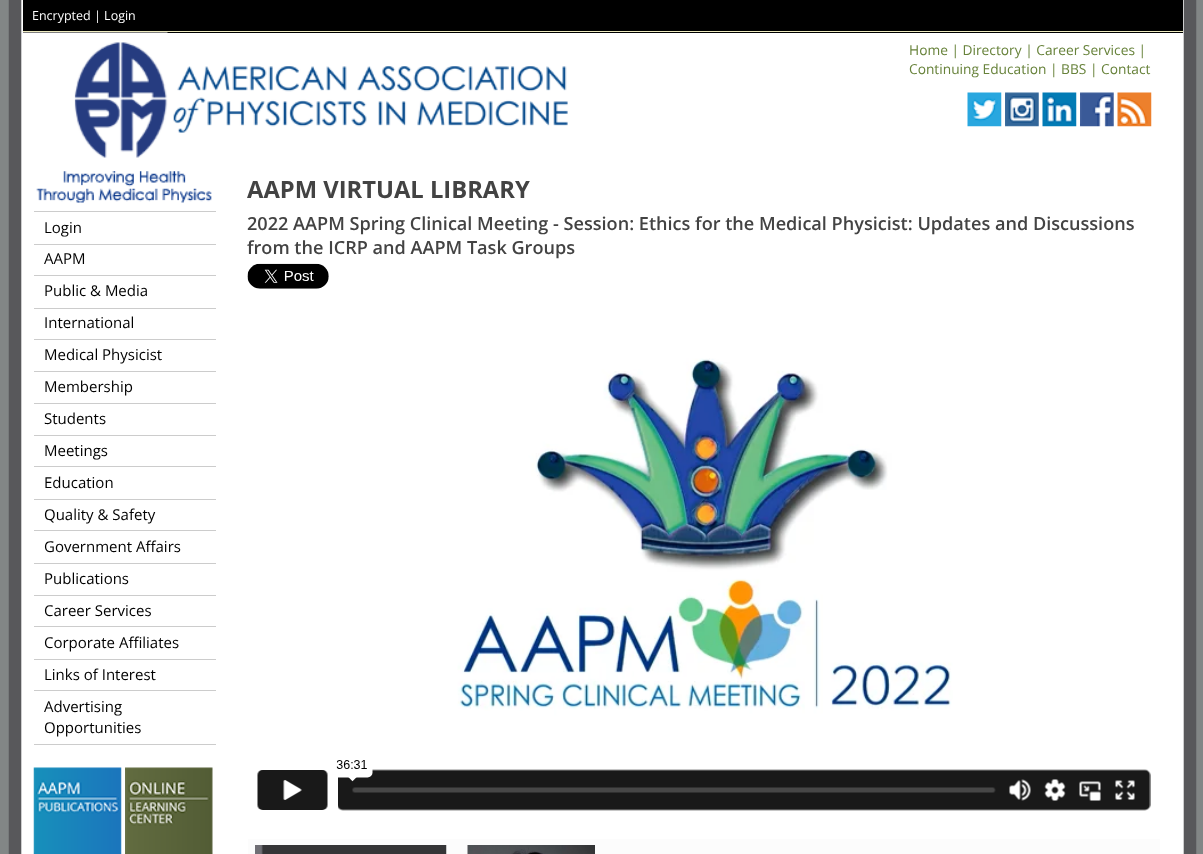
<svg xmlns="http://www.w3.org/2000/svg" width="1203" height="854">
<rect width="100%" height="100%" fill="#828686"/>
<image x="8" y="0" width="1189" height="854" href="media/1.png"/>
<rect x="23" width="1160" height="33" fill="#000"/>
<rect x="23" y="31" width="1160" height="1" fill="#eeebc0"/>
<text x="32" y="20" style="font-family:Open Sans;font-size:12.5px;fill:#fff">Encrypted | Login</text>
<image x="173" y="66" width="395" height="67" href="media/2.png"/>
<image x="23" y="32" width="145" height="126" href="media/3.png"/>
<text x="909" y="55" style="font-family:Open Sans;font-size:13.75px;fill:#67823a">Home | Directory | Career Services |</text>
<text x="909" y="74" style="font-family:Open Sans;font-size:13.75px;fill:#67823a">Continuing Education | BBS | Contact</text>
<image x="967" y="92" width="35" height="35" href="media/4.png"/>
<image x="1005" y="92" width="34" height="35" href="media/5.png"/>
<image x="1042" y="92" width="35" height="35" href="media/6.png"/>
<image x="1080" y="92" width="34" height="35" href="media/7.png"/>
<image x="1117" y="92" width="35" height="35" href="media/8.png"/>
<text x="247" y="198" style="font-family:Open Sans;font-size:23.75px;font-weight:bold;fill:#434343">AAPM VIRTUAL LIBRARY</text>
<image x="36" y="171" width="176" height="32" href="media/9.png"/>
<rect x="34" y="744" width="182" height="1" fill="#ccc"/>
<rect x="34" y="211" width="182" height="1" fill="#ccc"/>
<text x="44" y="233" style="font-family:Open Sans;font-size:15px;fill:#000">Login</text>
<rect x="34" y="244" width="182" height="1" fill="#ccc"/>
<text x="44" y="264" style="font-family:Open Sans;font-size:15px;fill:#000">AAPM</text>
<rect x="34" y="275" width="182" height="1" fill="#ccc"/>
<text x="44" y="296" style="font-family:Open Sans;font-size:15px;fill:#000">Public &amp; Media</text>
<rect x="34" y="308" width="182" height="1" fill="#ccc"/>
<text x="44" y="328" style="font-family:Open Sans;font-size:15px;fill:#000">International</text>
<rect x="34" y="339" width="182" height="1" fill="#ccc"/>
<text x="44" y="360" style="font-family:Open Sans;font-size:15px;fill:#000">Medical Physicist</text>
<rect x="34" y="371" width="182" height="1" fill="#ccc"/>
<text x="44" y="392" style="font-family:Open Sans;font-size:15px;fill:#000">Membership</text>
<rect x="34" y="403" width="182" height="1" fill="#ccc"/>
<text x="44" y="424" style="font-family:Open Sans;font-size:15px;fill:#000">Students</text>
<rect x="34" y="435" width="182" height="1" fill="#ccc"/>
<text x="44" y="456" style="font-family:Open Sans;font-size:15px;fill:#000">Meetings</text>
<rect x="34" y="466" width="182" height="1" fill="#ccc"/>
<text x="44" y="488" style="font-family:Open Sans;font-size:15px;fill:#000">Education</text>
<rect x="34" y="499" width="182" height="1" fill="#ccc"/>
<text x="44" y="520" style="font-family:Open Sans;font-size:15px;fill:#000">Quality &amp; Safety</text>
<rect x="34" y="530" width="182" height="1" fill="#ccc"/>
<text x="44" y="552" style="font-family:Open Sans;font-size:15px;fill:#000">Government Affairs</text>
<rect x="34" y="563" width="182" height="1" fill="#ccc"/>
<text x="44" y="584" style="font-family:Open Sans;font-size:15px;fill:#000">Publications</text>
<rect x="34" y="595" width="182" height="1" fill="#ccc"/>
<text x="44" y="616" style="font-family:Open Sans;font-size:15px;fill:#000">Career Services</text>
<rect x="34" y="626" width="182" height="1" fill="#ccc"/>
<text x="44" y="648" style="font-family:Open Sans;font-size:15px;fill:#000">Corporate Affiliates</text>
<rect x="34" y="659" width="182" height="1" fill="#ccc"/>
<text x="44" y="680" style="font-family:Open Sans;font-size:15px;fill:#000">Links of Interest</text>
<rect x="34" y="690" width="182" height="1" fill="#ccc"/>
<text x="44" y="712" style="font-family:Open Sans;font-size:15px;fill:#000">Advertising</text>
<text x="44" y="733" style="font-family:Open Sans;font-size:15px;fill:#000">Opportunities</text>
<image x="33" y="767" width="89" height="87" href="media/10.png"/>
<image x="125" y="767" width="88" height="87" href="media/11.png"/>
<text x="247" y="230" style="font-family:Open Sans;font-size:18.1px;font-weight:600;fill:#434343">2022 AAPM Spring Clinical Meeting - Session: Ethics for the Medical Physicist: Updates and Discussions</text>
<text x="247" y="254" style="font-family:Open Sans;font-size:18.1px;font-weight:600;fill:#434343">from the ICRP and AAPM Task Groups</text>
<image x="247" y="263" width="82" height="26" href="media/12.png"/>
<image x="257" y="358" width="894" height="453" href="media/13.png"/>
<rect x="248" y="839" width="912" height="15" fill="#fcfcfc"/>
<image x="255" y="845" width="192" height="9" href="media/14.png"/>
<image x="467" y="845" width="128" height="9" href="media/15.png"/>
</svg>
